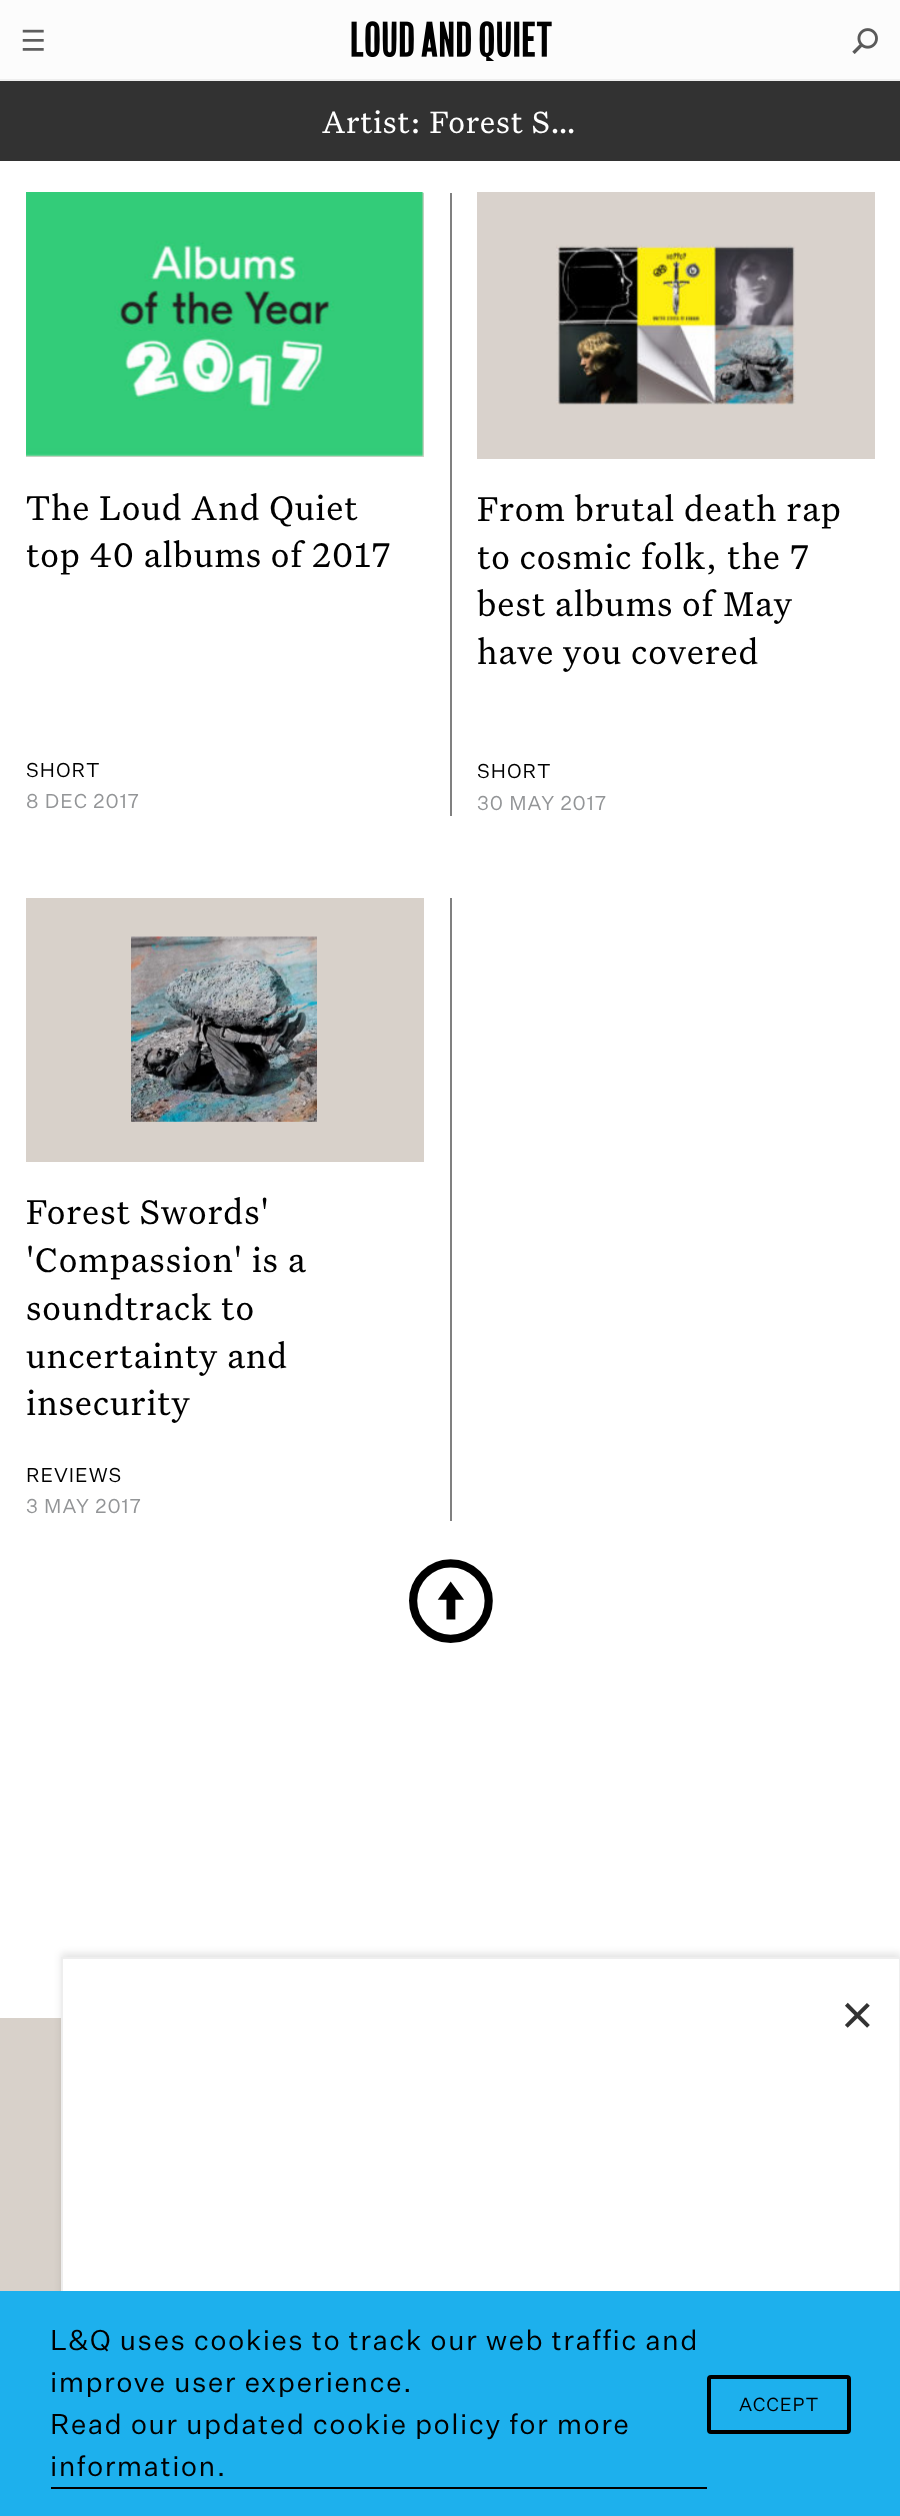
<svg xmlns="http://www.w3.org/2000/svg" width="900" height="2516">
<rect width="100%" height="100%" fill="#fff"/>
<rect width="900" height="79" fill="#fcfcfc"/>
<rect y="79" width="900" height="2" fill="#eee"/>
<image x="22" y="29" width="22" height="22" href="media/1.png"/>
<image x="351" y="21" width="201" height="40" href="media/2.png"/>
<image x="852" y="28" width="26" height="26" href="media/3.png"/>
<rect y="81" width="900" height="80" fill="#323232"/>
<text x="322" y="133" style="font-family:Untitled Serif;font-size:33px;letter-spacing:0.8px;fill:#fff">Artist: Forest S…</text>
<rect x="450" y="193" width="2" height="623" fill="#808080"/>
<rect x="26" y="193" width="398" height="264" fill="#d8d1ca"/>
<image x="26" y="192" width="398" height="265" href="media/4.png"/>
<text x="26" y="520" style="font-family:Untitled Serif;font-size:36.75px;letter-spacing:0.9px;fill:#000">The Loud And Quiet</text>
<text x="26" y="567" style="font-family:Untitled Serif;font-size:36.75px;letter-spacing:0.9px;fill:#000">top 40 albums of 2017</text>
<text x="26" y="777" style="font-family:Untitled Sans;font-size:19.5px;letter-spacing:1px;fill:#000">SHORT</text>
<text x="26" y="808" style="font-family:Untitled Sans;font-size:19.5px;letter-spacing:1px;fill:#939597">8 DEC 2017</text>
<image x="477" y="192" width="398" height="267" href="media/5.png"/>
<text x="477" y="521" style="font-family:Untitled Serif;font-size:36.75px;letter-spacing:0.9px;fill:#000">From brutal death rap</text>
<text x="477" y="569" style="font-family:Untitled Serif;font-size:36.75px;letter-spacing:0.9px;fill:#000">to cosmic folk, the 7</text>
<text x="477" y="616" style="font-family:Untitled Serif;font-size:36.75px;letter-spacing:0.9px;fill:#000">best albums of May</text>
<text x="477" y="664" style="font-family:Untitled Serif;font-size:36.75px;letter-spacing:0.9px;fill:#000">have you covered</text>
<text x="477" y="778" style="font-family:Untitled Sans;font-size:19.5px;letter-spacing:1px;fill:#000">SHORT</text>
<text x="477" y="810" style="font-family:Untitled Sans;font-size:19.5px;letter-spacing:1px;fill:#939597">30 MAY 2017</text>
<rect x="450" y="898" width="2" height="623" fill="#808080"/>
<rect x="26" y="898" width="398" height="264" fill="#d8d1ca"/>
<image x="131" y="936" width="186" height="186" href="media/6.png"/>
<text x="26" y="1224" style="font-family:Untitled Serif;font-size:36.75px;letter-spacing:0.9px;fill:#000">Forest Swords'</text>
<text x="26" y="1272" style="font-family:Untitled Serif;font-size:36.75px;letter-spacing:0.9px;fill:#000">'Compassion' is a</text>
<text x="26" y="1320" style="font-family:Untitled Serif;font-size:36.75px;letter-spacing:0.9px;fill:#000">soundtrack to</text>
<text x="26" y="1368" style="font-family:Untitled Serif;font-size:36.75px;letter-spacing:0.9px;fill:#000">uncertainty and</text>
<text x="26" y="1415" style="font-family:Untitled Serif;font-size:36.75px;letter-spacing:0.9px;fill:#000">insecurity</text>
<text x="26" y="1482" style="font-family:Untitled Sans;font-size:19.5px;letter-spacing:1px;fill:#000">REVIEWS</text>
<text x="26" y="1513" style="font-family:Untitled Sans;font-size:19.5px;letter-spacing:1px;fill:#939597">3 MAY 2017</text>
<text x="409" y="1643" style="font-family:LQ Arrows;font-size:168px;fill:#000">↑</text>
<rect y="2018" width="61" height="273" fill="#d8d1ca"/>
<rect x="61" y="1953" width="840" height="560" fill="#0000001a" filter="blur(3.5px)"/>
<rect x="63" y="1959" width="836" height="332" fill="#fff"/>
<rect x="62" y="1958" width="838" height="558" fill="none" stroke="#eee" stroke-width="2"/>
<text x="841" y="2034" style="font-family:Liberation Sans;font-size:56px;fill:#333">×</text>
<rect y="2291" width="900" height="225" fill="#1db0ed"/>
<text x="50" y="2350" style="font-family:Untitled Sans;font-size:28px;letter-spacing:1.4px;fill:#000">L&amp;Q uses cookies to track our web traffic and</text>
<text x="50" y="2392" style="font-family:Untitled Sans;font-size:28px;letter-spacing:1.4px;fill:#000">improve user experience.</text>
<rect x="51" y="2487" width="656" height="2" fill="#000"/>
<text x="50" y="2434" style="font-family:Untitled Sans;font-size:28px;letter-spacing:1.4px;fill:#000">Read our updated cookie policy for more</text>
<text x="50" y="2476" style="font-family:Untitled Sans;font-size:28px;letter-spacing:1.4px;fill:#000">information.</text>
<rect x="709" y="2377" width="140" height="55" rx="2" fill="none" stroke="#000" stroke-width="4"/>
<text x="739" y="2411" style="font-family:Untitled Sans;font-size:18.5px;letter-spacing:0.9px;fill:#000">ACCEPT</text>
</svg>
